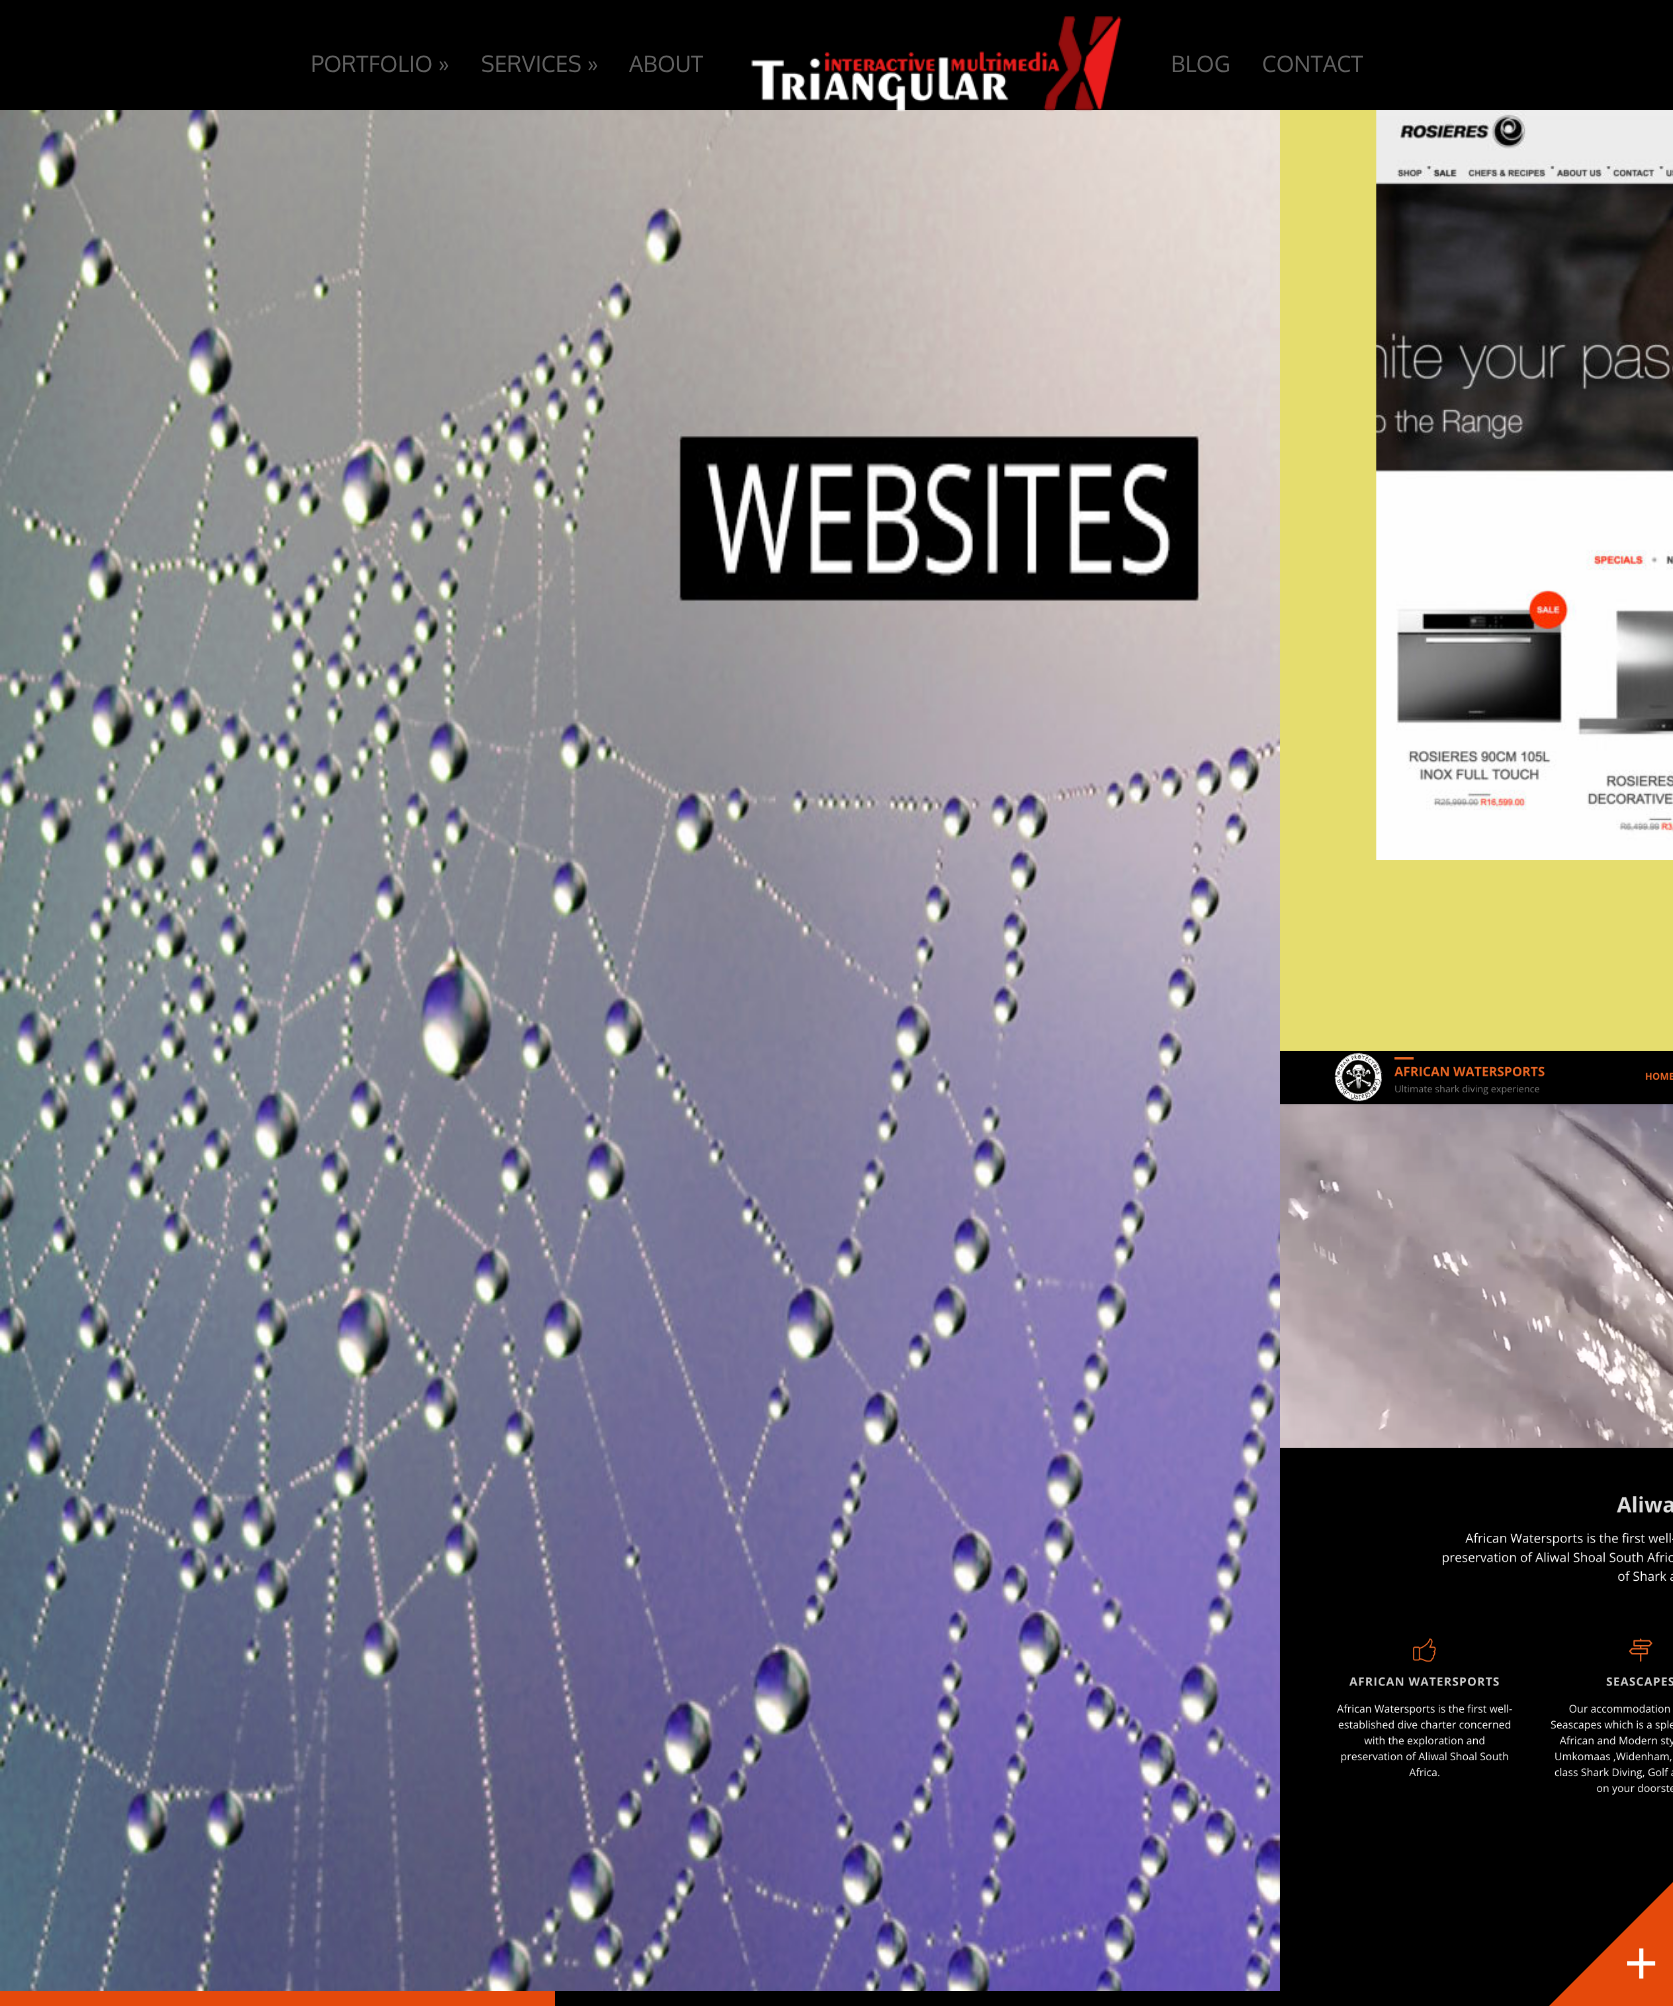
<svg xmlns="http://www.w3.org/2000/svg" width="1673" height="2006">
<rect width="100%" height="100%" fill="#fff"/>
<rect width="1673" height="110" fill="#000"/>
<text x="311" y="72" style="font-family:Oxygen;font-size:22.5px;fill:#616161">PORTFOLIO »</text>
<text x="481" y="72" style="font-family:Oxygen;font-size:22.5px;fill:#616161">SERVICES »</text>
<text x="629" y="72" style="font-family:Oxygen;font-size:22.5px;fill:#616161">ABOUT</text>
<image x="0" y="110" width="1280" height="1881" href="media/2.png"/>
<image x="751" y="16" width="371" height="96" href="media/1.png"/>
<text x="1171" y="72" style="font-family:Oxygen;font-size:22.5px;fill:#616161">BLOG</text>
<text x="1262" y="72" style="font-family:Oxygen;font-size:22.5px;fill:#616161">CONTACT</text>
<rect x="1280" y="110" width="393" height="941" fill="#e5dd6e"/>
<image x="1376" y="110" width="297" height="750" href="media/3.png"/>
<rect x="1280" y="1051" width="393" height="940" fill="#000"/>
<image x="1280" y="1052" width="393" height="743" href="media/4.png"/>
<rect x="555" y="1991" width="1009" height="15" fill="#000"/>
<rect y="1991" width="555" height="15" fill="#e5490b"/>
<path d="M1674 1881v125h-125z" fill="#e5490b"/>
<text x="1624" y="1983" style="font-family:Oxygen;font-size:62px;fill:#fff">+</text>
</svg>
